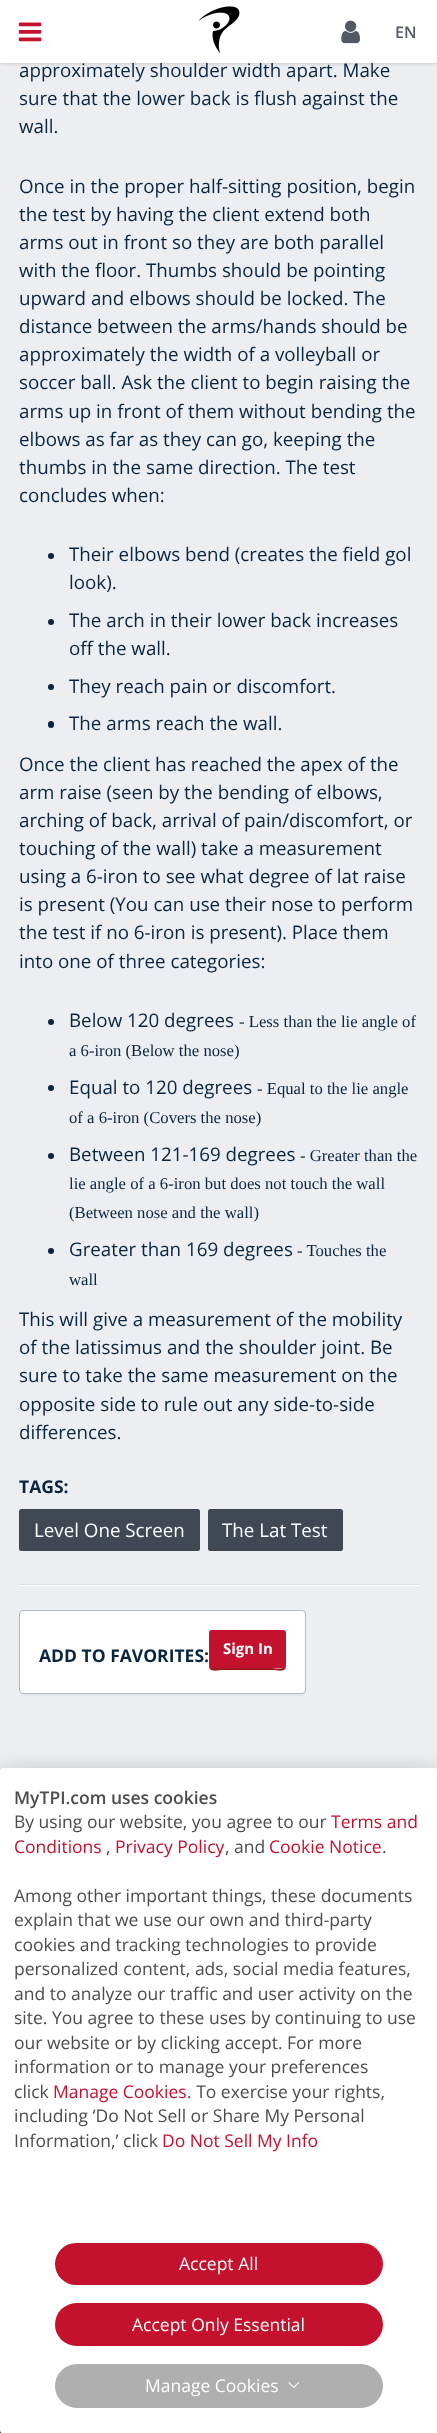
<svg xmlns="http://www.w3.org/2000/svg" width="437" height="2433">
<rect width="100%" height="100%" fill="#000"/>
<rect y="63" width="437" height="1709" fill="#eceef1"/>
<rect width="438" height="63" fill="#00000038" filter="blur(2px)"/>
<text x="19" y="77" style="font-family:Open Sans;font-size:18.75px;fill:#0a2540">approximately shoulder width apart. Make</text>
<rect width="437" height="63" fill="#fff"/>
<image x="18" y="22" width="24" height="20" href="media/1.png"/>
<image x="198" y="6" width="42" height="48" href="media/2.png"/>
<image x="341" y="20" width="19" height="24" href="media/3.png"/>
<text x="395" y="38" style="font-family:Open Sans;font-size:16px;font-weight:600;fill:#525963">EN</text>
<text x="19" y="105" style="font-family:Open Sans;font-size:18.75px;fill:#0a2540">sure that the lower back is flush against the</text>
<text x="19" y="133" style="font-family:Open Sans;font-size:18.75px;fill:#0a2540">wall.</text>
<text x="19" y="193" style="font-family:Open Sans;font-size:18.75px;fill:#0a2540">Once in the proper half-sitting position, begin</text>
<text x="19" y="221" style="font-family:Open Sans;font-size:18.75px;fill:#0a2540">the test by having the client extend both</text>
<text x="19" y="249" style="font-family:Open Sans;font-size:18.75px;fill:#0a2540">arms out in front so they are both parallel</text>
<text x="19" y="277" style="font-family:Open Sans;font-size:18.75px;fill:#0a2540">with the floor. Thumbs should be pointing</text>
<text x="19" y="305" style="font-family:Open Sans;font-size:18.75px;fill:#0a2540">upward and elbows should be locked. The</text>
<text x="19" y="333" style="font-family:Open Sans;font-size:18.75px;fill:#0a2540">distance between the arms/hands should be</text>
<text x="19" y="361" style="font-family:Open Sans;font-size:18.75px;fill:#0a2540">approximately the width of a volleyball or</text>
<text x="19" y="389" style="font-family:Open Sans;font-size:18.75px;fill:#0a2540">soccer ball. Ask the client to begin raising the</text>
<text x="19" y="418" style="font-family:Open Sans;font-size:18.75px;fill:#0a2540">arms up in front of them without bending the</text>
<text x="19" y="446" style="font-family:Open Sans;font-size:18.75px;fill:#0a2540">elbows as far as they can go, keeping the</text>
<text x="19" y="474" style="font-family:Open Sans;font-size:18.75px;fill:#0a2540">thumbs in the same direction. The test</text>
<text x="19" y="502" style="font-family:Open Sans;font-size:18.75px;fill:#0a2540">concludes when:</text>
<circle cx="51" cy="556" r="3" fill="#0a2540"/>
<text x="69" y="561" style="font-family:Open Sans;font-size:18.75px;fill:#0a2540">Their elbows bend (creates the field gol</text>
<text x="69" y="589" style="font-family:Open Sans;font-size:18.75px;fill:#0a2540">look).</text>
<circle cx="51" cy="622" r="3" fill="#0a2540"/>
<text x="69" y="627" style="font-family:Open Sans;font-size:18.75px;fill:#0a2540">The arch in their lower back increases</text>
<text x="69" y="655" style="font-family:Open Sans;font-size:18.75px;fill:#0a2540">off the wall.</text>
<circle cx="51" cy="687" r="3" fill="#0a2540"/>
<text x="69" y="693" style="font-family:Open Sans;font-size:18.75px;fill:#0a2540">They reach pain or discomfort.</text>
<rect x="48" y="721" width="6" height="7" rx="3" fill="#0a2540"/>
<text x="69" y="730" style="font-family:Open Sans;font-size:18.75px;fill:#0a2540">The arms reach the wall.</text>
<text x="19" y="771" style="font-family:Open Sans;font-size:18.75px;fill:#0a2540">Once the client has reached the apex of the</text>
<text x="19" y="799" style="font-family:Open Sans;font-size:18.75px;fill:#0a2540">arm raise (seen by the bending of elbows,</text>
<text x="19" y="827" style="font-family:Open Sans;font-size:18.75px;fill:#0a2540">arching of back, arrival of pain/discomfort, or</text>
<text x="19" y="855" style="font-family:Open Sans;font-size:18.75px;fill:#0a2540">touching of the wall) take a measurement</text>
<text x="19" y="883" style="font-family:Open Sans;font-size:18.75px;fill:#0a2540">using a 6-iron to see what degree of lat raise</text>
<text x="19" y="911" style="font-family:Open Sans;font-size:18.75px;fill:#0a2540">is present (You can use their nose to perform</text>
<text x="19" y="939" style="font-family:Open Sans;font-size:18.75px;fill:#0a2540">the test if no 6-iron is present). Place them</text>
<text x="19" y="968" style="font-family:Open Sans;font-size:18.75px;fill:#0a2540">into one of three categories:</text>
<circle cx="51" cy="1022" r="3" fill="#0a2540"/>
<text x="69" y="1027" style="font-family:Open Sans;font-size:18.75px;fill:#0a2540">Below 120 degrees</text>
<text x="239" y="1027" style="font-family:Liberation Serif;font-size:16.7px;fill:#0a2540">- Less than the lie angle of</text>
<text x="69" y="1056" style="font-family:Liberation Serif;font-size:16.7px;fill:#0a2540">a 6-iron (Below the nose)</text>
<circle cx="51" cy="1088" r="3" fill="#0a2540"/>
<text x="69" y="1094" style="font-family:Open Sans;font-size:18.75px;fill:#0a2540">Equal to 120 degrees</text>
<text x="257" y="1094" style="font-family:Liberation Serif;font-size:16.7px;fill:#0a2540">- Equal to the lie angle</text>
<text x="69" y="1123" style="font-family:Liberation Serif;font-size:16.7px;fill:#0a2540">of a 6-iron (Covers the nose)</text>
<circle cx="51" cy="1156" r="3" fill="#0a2540"/>
<text x="69" y="1161" style="font-family:Open Sans;font-size:18.75px;fill:#0a2540">Between 121-169 degrees</text>
<text x="300" y="1161" style="font-family:Liberation Serif;font-size:16.7px;fill:#0a2540">- Greater than the</text>
<text x="69" y="1189" style="font-family:Liberation Serif;font-size:16.7px;fill:#0a2540">lie angle of a 6-iron but does not touch the wall</text>
<text x="69" y="1218" style="font-family:Liberation Serif;font-size:16.7px;fill:#0a2540">(Between nose and the wall)</text>
<circle cx="51" cy="1251" r="3" fill="#0a2540"/>
<text x="69" y="1256" style="font-family:Open Sans;font-size:18.75px;fill:#0a2540">Greater than 169 degrees</text>
<text x="297" y="1256" style="font-family:Liberation Serif;font-size:16.7px;fill:#0a2540">- Touches the</text>
<text x="69" y="1285" style="font-family:Liberation Serif;font-size:16.7px;fill:#0a2540">wall</text>
<text x="19" y="1326" style="font-family:Open Sans;font-size:18.75px;fill:#0a2540">This will give a measurement of the mobility</text>
<text x="19" y="1354" style="font-family:Open Sans;font-size:18.75px;fill:#0a2540">of the latissimus and the shoulder joint. Be</text>
<text x="19" y="1382" style="font-family:Open Sans;font-size:18.75px;fill:#0a2540">sure to take the same measurement on the</text>
<text x="19" y="1411" style="font-family:Open Sans;font-size:18.75px;fill:#0a2540">opposite side to rule out any side-to-side</text>
<text x="19" y="1439" style="font-family:Open Sans;font-size:18.75px;fill:#0a2540">differences.</text>
<text x="19" y="1493" style="font-family:Open Sans;font-size:17.5px;font-weight:bold;fill:#0a2540">TAGS:</text>
<rect x="19" y="1509" width="181" height="42" rx="2.5" fill="#404854"/>
<text x="34" y="1537" style="font-family:Open Sans;font-size:18.75px;fill:#fff">Level One Screen</text>
<rect x="208" y="1509" width="135" height="42" rx="2.5" fill="#404854"/>
<text x="222" y="1537" style="font-family:Open Sans;font-size:18.75px;fill:#fff">The Lat Test</text>
<rect x="19" y="1585" width="400" height="1" fill="#fff" filter="blur(0.5px)"/>
<rect x="19" y="1584" width="400" height="1" fill="#dde1e6"/>
<path d="M19 1691l1 3l2 2h280c3 0 4-2 4-5c-1 2-2 3-4 3h-280c-1 0-2-1-3-3z" fill="#e5e7ea"/>
<rect x="19.5" y="1610.5" width="286" height="83" rx="3.5" fill="#fff" stroke="#b1b9c6"/>
<text x="39" y="1662" style="font-family:Open Sans;font-size:17.5px;font-weight:bold;fill:#0a2540">ADD TO FAVORITES:</text>
<path d="M209 1666c0 7 9 4 15 4h48c5 0 14 3 14-4c-2 4-14 2-14 2l-62-1z" fill="#9f191f"/>
<rect x="209.5" y="1630.5" width="76" height="37" rx="2" fill="#c3112e" stroke="#c3112e"/>
<text x="223" y="1654" style="font-family:Open Sans;font-size:15px;font-weight:bold;fill:#fff">Sign In</text>
<rect y="1775" width="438" height="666" rx="4" fill="#0000004d" filter="blur(12.5px)"/>
<rect y="1768" width="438" height="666" rx="4" fill="#fff"/>
<text x="14" y="1804" style="font-family:Open Sans;font-size:17.5px;font-weight:600;fill:#4c4c4c">MyTPI.com uses cookies</text>
<text x="14" y="1828" style="font-family:Open Sans;font-size:17.5px;fill:#4c4c4c">By using our website, you agree to our</text>
<text x="331" y="1828" style="font-family:Open Sans;font-size:17.5px;fill:#c3112e">Terms and</text>
<text x="14" y="1853" style="font-family:Open Sans;font-size:17.5px;fill:#c3112e">Conditions</text>
<text x="106" y="1853" style="font-family:Open Sans;font-size:17.5px;fill:#4c4c4c">,</text>
<text x="115" y="1853" style="font-family:Open Sans;font-size:17.5px;fill:#c3112e">Privacy Policy</text>
<text x="225" y="1853" style="font-family:Open Sans;font-size:17.5px;fill:#4c4c4c">, and</text>
<text x="269" y="1853" style="font-family:Open Sans;font-size:17.5px;fill:#c3112e">Cookie Notice</text>
<text x="382" y="1853" style="font-family:Open Sans;font-size:17.5px;fill:#4c4c4c">.</text>
<text x="14" y="1902" style="font-family:Open Sans;font-size:17.5px;fill:#4c4c4c">Among other important things, these documents</text>
<text x="14" y="1926" style="font-family:Open Sans;font-size:17.5px;fill:#4c4c4c">explain that we use our own and third-party</text>
<text x="14" y="1951" style="font-family:Open Sans;font-size:17.5px;fill:#4c4c4c">cookies and tracking technologies to provide</text>
<text x="14" y="1975" style="font-family:Open Sans;font-size:17.5px;fill:#4c4c4c">personalized content, ads, social media features,</text>
<text x="14" y="2000" style="font-family:Open Sans;font-size:17.5px;fill:#4c4c4c">and to analyze our traffic and user activity on the</text>
<text x="14" y="2024" style="font-family:Open Sans;font-size:17.5px;fill:#4c4c4c">site. You agree to these uses by continuing to use</text>
<text x="14" y="2049" style="font-family:Open Sans;font-size:17.5px;fill:#4c4c4c">our website or by clicking accept. For more</text>
<text x="14" y="2073" style="font-family:Open Sans;font-size:17.5px;fill:#4c4c4c">information or to manage your preferences</text>
<text x="14" y="2098" style="font-family:Open Sans;font-size:17.5px;fill:#4c4c4c">click</text>
<text x="53" y="2098" style="font-family:Open Sans;font-size:17.5px;fill:#c3112e">Manage Cookies</text>
<text x="187" y="2098" style="font-family:Open Sans;font-size:17.5px;fill:#4c4c4c">. To exercise your rights,</text>
<text x="14" y="2122" style="font-family:Open Sans;font-size:17.5px;fill:#4c4c4c">including ‘Do Not Sell or Share My Personal</text>
<text x="14" y="2147" style="font-family:Open Sans;font-size:17.5px;fill:#4c4c4c">Information,’ click</text>
<text x="162" y="2147" style="font-family:Open Sans;font-size:17.5px;fill:#c3112e">Do Not Sell My Info</text>
<rect x="55" y="2243" width="328" height="42" rx="21" fill="#c3112e"/>
<text x="179" y="2270" style="font-family:Open Sans;font-size:17.5px;fill:#fff">Accept All</text>
<rect x="55" y="2303" width="328" height="43" rx="21.5" fill="#c3112e"/>
<text x="132" y="2331" style="font-family:Open Sans;font-size:17.5px;fill:#fff">Accept Only Essential</text>
<rect x="55" y="2364" width="328" height="44" rx="22" fill="#afafaf"/>
<text x="145" y="2392" style="font-family:Open Sans;font-size:17.5px;fill:#fff">Manage Cookies</text>
<image x="288" y="2382" width="12" height="6" href="media/4.png"/>
</svg>
